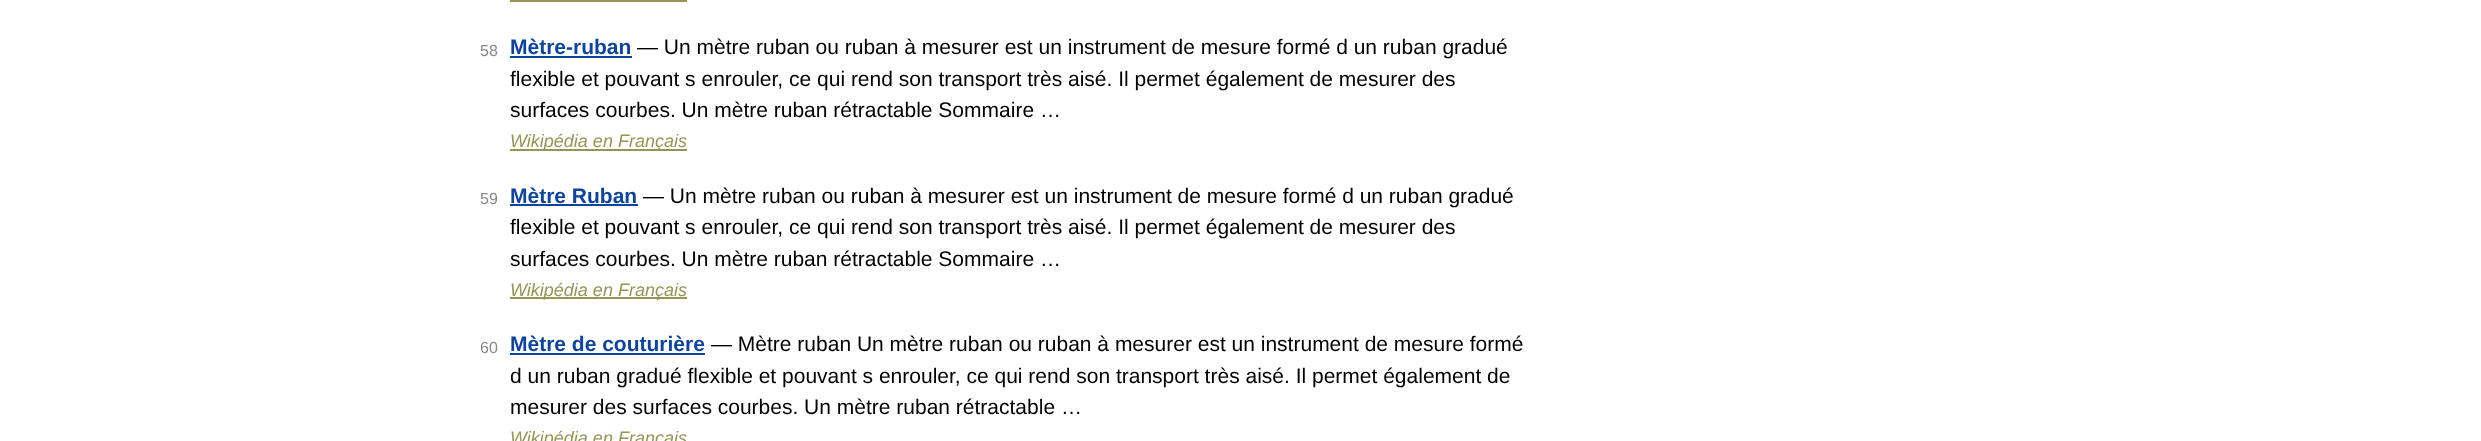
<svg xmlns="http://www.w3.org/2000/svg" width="2481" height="441">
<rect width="100%" height="100%" fill="#fff"/>
<rect x="510" width="177" height="2" fill="#939756"/>
<text x="480" y="56" style="font-family:Liberation Sans;font-size:16px;fill:#898989">58</text>
<text x="510" y="54" style="font-family:Liberation Sans;font-size:21px;font-weight:bold;fill:#0d44a0">Mètre-ruban</text>
<rect x="510" y="56" width="122" height="2" fill="#0d44a0"/>
<text x="637" y="54" style="font-family:Liberation Sans;font-size:21px;fill:#000">— Un mètre ruban ou ruban à mesurer est un instrument de mesure formé d un ruban gradué</text>
<text x="510" y="86" style="font-family:Liberation Sans;font-size:21px;fill:#000">flexible et pouvant s enrouler, ce qui rend son transport très aisé. Il permet également de mesurer des</text>
<text x="510" y="117" style="font-family:Liberation Sans;font-size:21px;fill:#000">surfaces courbes. Un mètre ruban rétractable Sommaire …</text>
<rect x="510" y="149" width="177" height="2" fill="#939756"/>
<text x="510" y="147" style="font-family:Liberation Sans;font-size:18px;font-style:italic;fill:#939756">Wikipédia en Français</text>
<text x="480" y="204" style="font-family:Liberation Sans;font-size:16px;fill:#898989">59</text>
<text x="510" y="203" style="font-family:Liberation Sans;font-size:21px;font-weight:bold;fill:#0d44a0">Mètre Ruban</text>
<rect x="510" y="204" width="128" height="2" fill="#0d44a0"/>
<text x="643" y="203" style="font-family:Liberation Sans;font-size:21px;fill:#000">— Un mètre ruban ou ruban à mesurer est un instrument de mesure formé d un ruban gradué</text>
<text x="510" y="234" style="font-family:Liberation Sans;font-size:21px;fill:#000">flexible et pouvant s enrouler, ce qui rend son transport très aisé. Il permet également de mesurer des</text>
<text x="510" y="266" style="font-family:Liberation Sans;font-size:21px;fill:#000">surfaces courbes. Un mètre ruban rétractable Sommaire …</text>
<rect x="510" y="297" width="177" height="2" fill="#939756"/>
<text x="510" y="296" style="font-family:Liberation Sans;font-size:18px;font-style:italic;fill:#939756">Wikipédia en Français</text>
<text x="480" y="353" style="font-family:Liberation Sans;font-size:16px;fill:#898989">60</text>
<text x="510" y="351" style="font-family:Liberation Sans;font-size:21px;font-weight:bold;fill:#0d44a0">Mètre de couturière</text>
<rect x="510" y="353" width="195" height="2" fill="#0d44a0"/>
<text x="711" y="351" style="font-family:Liberation Sans;font-size:21px;fill:#000">— Mètre ruban Un mètre ruban ou ruban à mesurer est un instrument de mesure formé</text>
<text x="510" y="383" style="font-family:Liberation Sans;font-size:21px;fill:#000">d un ruban gradué flexible et pouvant s enrouler, ce qui rend son transport très aisé. Il permet également de</text>
<text x="510" y="414" style="font-family:Liberation Sans;font-size:21px;fill:#000">mesurer des surfaces courbes. Un mètre ruban rétractable …</text>
<text x="510" y="444" style="font-family:Liberation Sans;font-size:18px;font-style:italic;fill:#939756">Wikipédia en Français</text>
</svg>
